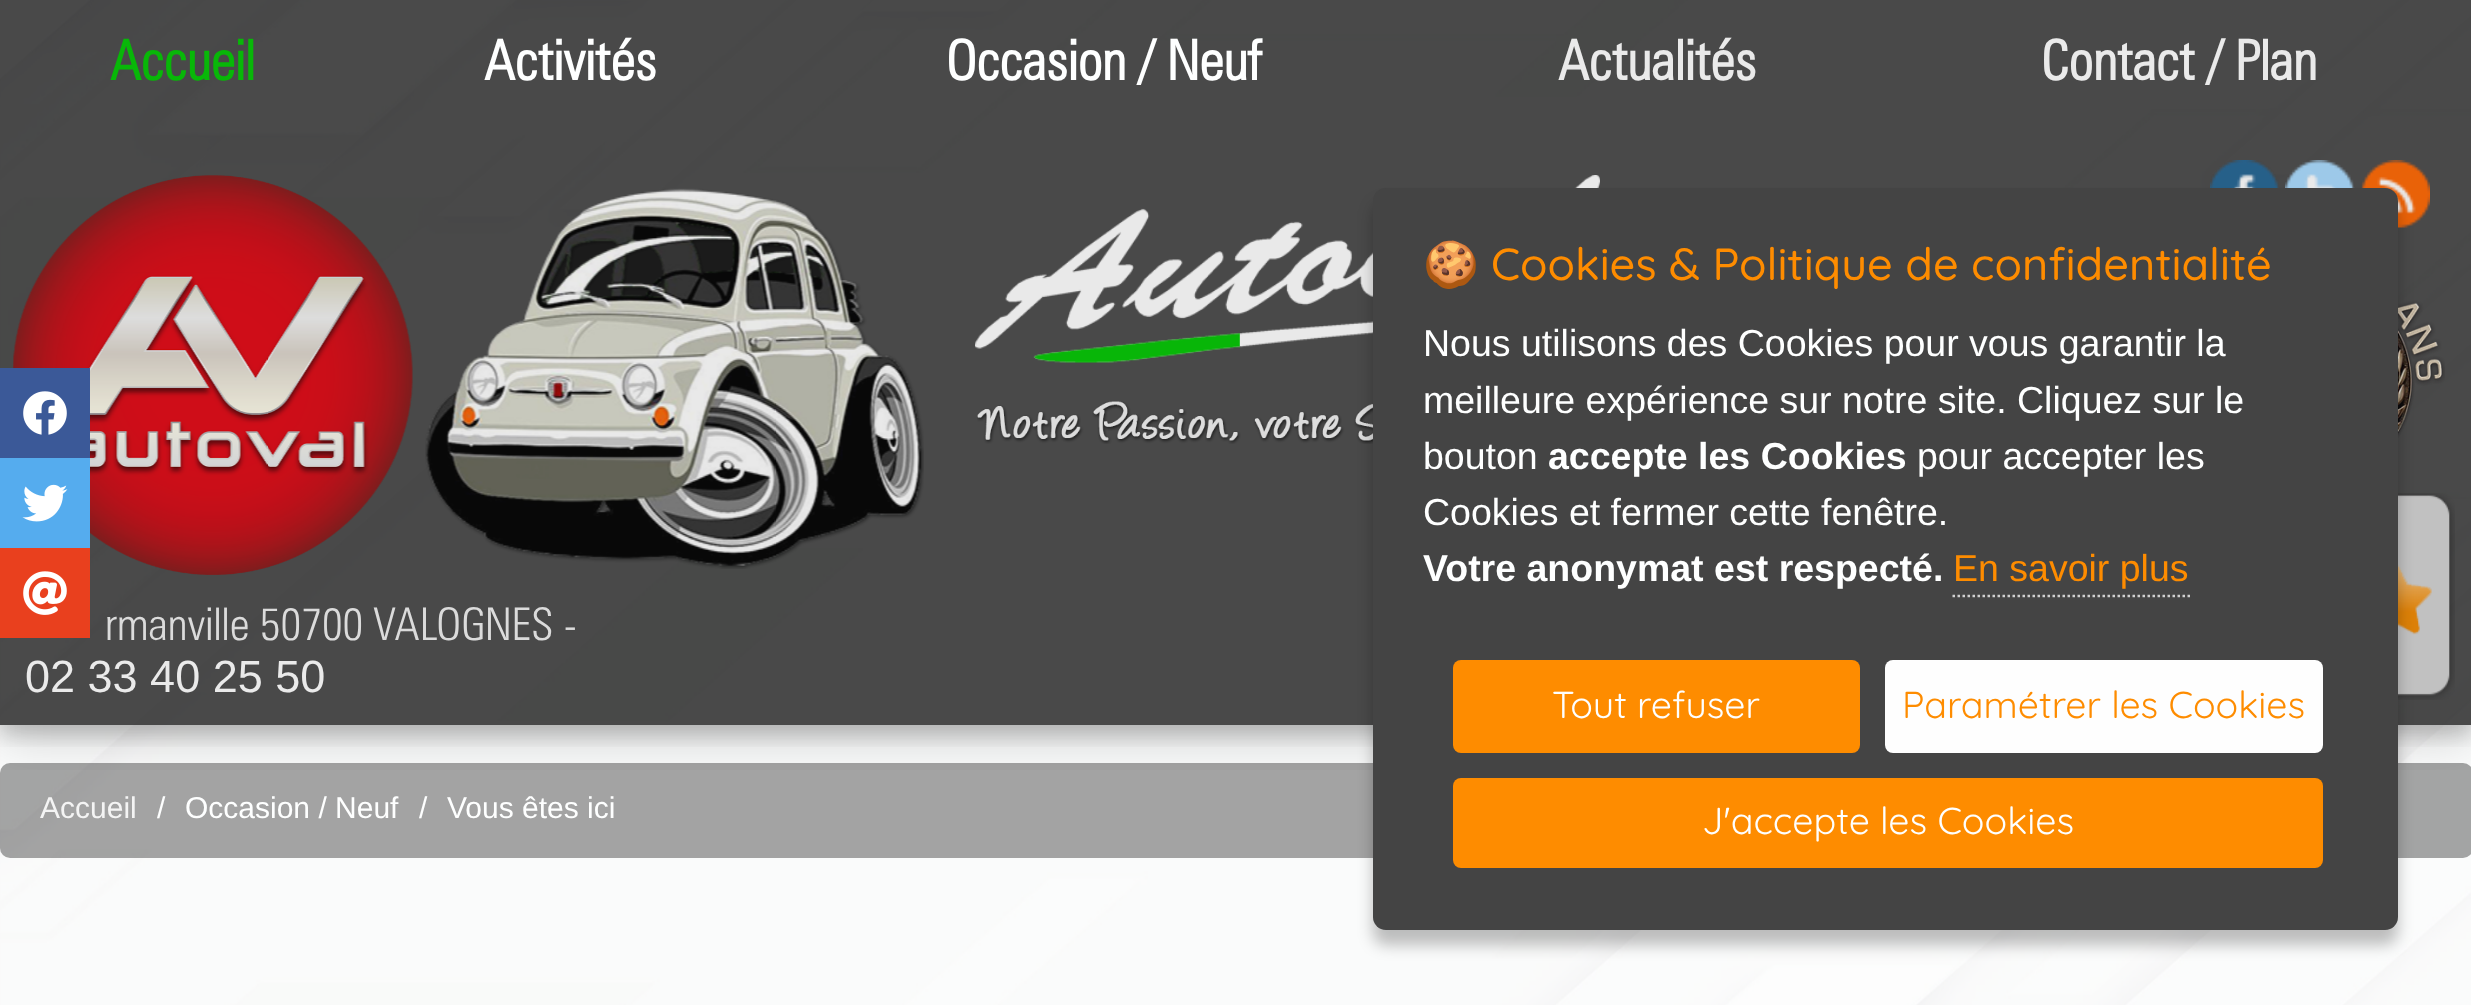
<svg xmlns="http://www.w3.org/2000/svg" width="2471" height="1005">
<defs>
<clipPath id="clip1"><rect x="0" y="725" width="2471" height="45"/></clipPath>
<clipPath id="clip2"><rect x="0" y="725" width="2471" height="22"/></clipPath>
</defs>
<rect width="100%" height="100%" fill="#fff"/>
<image x="0" y="0" width="2471" height="1005" href="media/1.png"/>
<rect y="763" width="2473" height="95" rx="10" fill="#00000059"/>
<g clip-path="url(#clip1)">
<rect y="15" width="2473" height="725" fill="#0000002b" filter="blur(25px)"/>
</g>
<g clip-path="url(#clip2)">
<rect y="10" width="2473" height="725" fill="#0000002e" filter="blur(10px)"/>
</g>
<rect width="2471" height="725" fill="#000000b5"/>
<text x="110" y="80" style="font-family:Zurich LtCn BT;font-size:55px;font-weight:bold;fill:#08b708">Accueil</text>
<text x="484" y="80" style="font-family:Zurich LtCn BT;font-size:55px;font-weight:bold;fill:#feffff">Activités</text>
<text x="946" y="80" style="font-family:Zurich LtCn BT;font-size:55px;font-weight:bold;fill:#feffff">Occasion / Neuf</text>
<text x="1558" y="80" style="font-family:Zurich LtCn BT;font-size:55px;font-weight:bold;fill:#eaeaea">Actualités</text>
<text x="2041" y="80" style="font-family:Zurich LtCn BT;font-size:55px;font-weight:bold;fill:#eaeaea">Contact / Plan</text>
<image x="13" y="175" width="400" height="400" href="media/2.png"/>
<image x="425" y="188" width="499" height="381" href="media/3.png"/>
<image x="975" y="175" width="625" height="188" href="media/4.png"/>
<image x="2210" y="160" width="70" height="28" href="media/5.png"/>
<image x="2285" y="160" width="70" height="28" href="media/6.png"/>
<image x="2361" y="160" width="69" height="68" href="media/7.png"/>
<image x="977" y="401" width="396" height="43" href="media/8.png"/>
<image x="2398" y="300" width="47" height="138" href="media/9.png"/>
<text x="105" y="640" style="font-family:Zurich LtCn BT;font-size:45px;font-weight:300;fill:#dbdbdb">rmanville 50700 VALOGNES -</text>
<text x="25" y="692" style="font-family:Liberation Sans;font-size:45px;fill:#eaeaea">02 33 40 25 50</text>
<image x="2398" y="493" width="57" height="207" href="media/10.png"/>
<text x="40" y="818" style="font-family:Liberation Sans;font-size:30px;fill:#f4f4f4">Accueil</text>
<text x="157" y="818" style="font-family:Liberation Sans;font-size:30px;fill:#feffff">/</text>
<text x="185" y="818" style="font-family:Liberation Sans;font-size:30px;fill:#feffff">Occasion / Neuf</text>
<text x="419" y="818" style="font-family:Liberation Sans;font-size:30px;fill:#feffff">/</text>
<text x="447" y="818" style="font-family:Liberation Sans;font-size:30px;fill:#feffff">Vous êtes ici</text>
<rect y="368" width="90" height="90" fill="#3b5998"/>
<image x="23" y="391" width="44" height="44" href="media/11.png"/>
<rect y="458" width="90" height="90" fill="#55acee"/>
<image x="22" y="484" width="46" height="38" href="media/12.png"/>
<rect y="548" width="90" height="90" fill="#e9401e"/>
<image x="23" y="571" width="44" height="44" href="media/13.png"/>
<rect x="1373" y="203" width="1025" height="742" rx="13" fill="#00000040" filter="blur(7.5px)"/>
<rect x="1373" y="188" width="1025" height="742" rx="13" fill="#444"/>
<text x="1423" y="280" style="font-family:Noto Color Emoji;font-size:45px;fill:#fe8c00">🍪</text>
<text x="1491" y="280" style="font-family:Quicksand;font-size:45px;font-weight:500;fill:#fe8c00">Cookies &amp; Politique de confidentialité</text>
<text x="1423" y="356" style="font-family:Liberation Sans;font-size:37.5px;fill:#feffff">Nous utilisons des Cookies pour vous garantir la</text>
<text x="1423" y="413" style="font-family:Liberation Sans;font-size:37.5px;fill:#feffff">meilleure expérience sur notre site. Cliquez sur le</text>
<text x="1423" y="469" style="font-family:Liberation Sans;font-size:37.5px;fill:#feffff">bouton</text>
<text x="1548" y="469" style="font-family:Liberation Sans;font-size:37.5px;font-weight:bold;fill:#feffff">accepte les Cookies</text>
<text x="1917" y="469" style="font-family:Liberation Sans;font-size:37.5px;fill:#feffff">pour accepter les</text>
<text x="1423" y="525" style="font-family:Liberation Sans;font-size:37.5px;fill:#feffff">Cookies et fermer cette fenêtre.</text>
<text x="1423" y="581" style="font-family:Liberation Sans;font-size:37.5px;font-weight:bold;fill:#feffff">Votre anonymat est respecté.</text>
<text x="1953" y="581" style="font-family:Liberation Sans;font-size:37.5px;fill:#fe8c00">En savoir plus</text>
<path d="M1952.5 596h237.5" fill="none" stroke="#d0d0d0" stroke-width="2.5" stroke-dasharray="2.5 2.5"/>
<rect x="1453" y="660" width="407" height="93" rx="8" fill="#fe8c00"/>
<text x="1552" y="718" style="font-family:Quicksand;font-size:37.5px;fill:#feffff">Tout refuser</text>
<rect x="1885" y="660" width="438" height="93" rx="8" fill="#fefefe"/>
<text x="1902" y="718" style="font-family:Quicksand;font-size:37.5px;fill:#fe8c00">Paramétrer les Cookies</text>
<rect x="1453" y="778" width="870" height="90" rx="8" fill="#fe8c00"/>
<text x="1702" y="834" style="font-family:Quicksand;font-size:37.5px;fill:#feffff">J'accepte les Cookies</text>
</svg>
